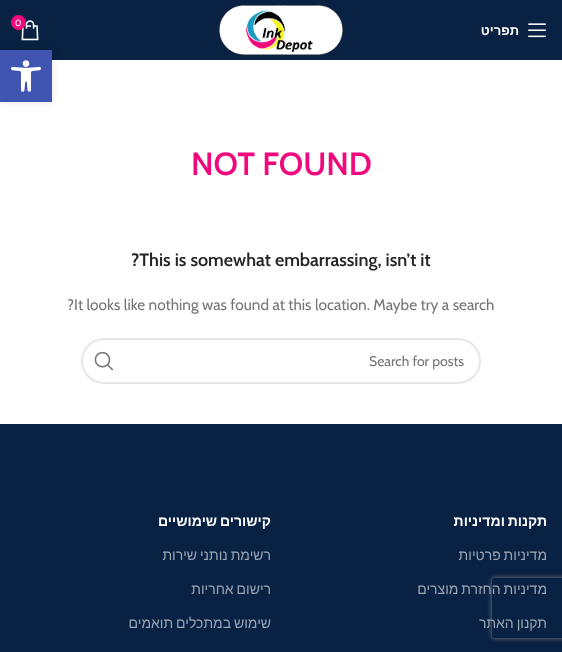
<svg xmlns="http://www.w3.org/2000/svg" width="562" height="652">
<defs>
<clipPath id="clip1"><path d="M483 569h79v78h-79zm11 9h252c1 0 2 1 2 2v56c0 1-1 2-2 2h-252c-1 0-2-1-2-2v-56c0-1 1-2 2-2z" clip-rule="evenodd"/></clipPath>
</defs>
<rect width="100%" height="100%" fill="#fff"/>
<rect width="562" height="60" fill="#092143"/>
<image x="21" y="20" width="18" height="21" href="media/1.png"/>
<circle cx="18.5" cy="22.5" r="7.5" fill="#f0097d"/>
<text x="15" y="26" style="font-family:Cabin;font-size:9px;fill:#fff">0</text>
<image x="219" y="5" width="124" height="50" href="media/2.png"/>
<text x="519" y="35" style="font-family:Liberation Sans;font-size:13px;font-weight:bold;direction:rtl;fill:#fff">תפריט</text>
<image x="528" y="23" width="18" height="15" href="media/3.png"/>
<text x="191" y="175" style="font-family:Cabin;font-size:32px;font-weight:600;fill:#f0097d">NOT FOUND</text>
<text x="131" y="266" style="font-family:Cabin;font-size:18px;font-weight:600;fill:#242424">?This is somewhat embarrassing, isn’t it</text>
<text x="67" y="310" style="font-family:Cabin;font-size:15.4px;fill:#767676">?It looks like nothing was found at this location. Maybe try a search</text>
<rect x="82" y="339" width="398" height="44" rx="22" fill="none" stroke="#e6e6e6" stroke-width="2"/>
<image x="94" y="351" width="20" height="20" href="media/4.png"/>
<text x="369" y="366" style="font-family:Cabin;font-size:14px;fill:#767676">Search for posts</text>
<rect y="424" width="562" height="228" fill="#092143"/>
<text x="271" y="526" word-spacing="-1" style="font-family:Liberation Sans;font-size:14px;font-weight:bold;direction:rtl;fill:#fff">קישורים שימושיים</text>
<text x="271" y="560" word-spacing="-1" style="font-family:Liberation Sans;font-size:14px;direction:rtl;fill:#9da6b4">רשימת נותני שירות</text>
<text x="271" y="594" word-spacing="-1" style="font-family:Liberation Sans;font-size:14px;direction:rtl;fill:#9da6b4">רישום אחריות</text>
<text x="271" y="628" word-spacing="-1" style="font-family:Liberation Sans;font-size:14px;direction:rtl;fill:#9da6b4">שימוש במתכלים תואמים</text>
<text x="547" y="526" word-spacing="-1" style="font-family:Liberation Sans;font-size:14px;font-weight:bold;direction:rtl;fill:#fff">תקנות ומדיניות</text>
<text x="547" y="560" word-spacing="-1" style="font-family:Liberation Sans;font-size:14px;direction:rtl;fill:#9da6b4">מדיניות פרטיות</text>
<text x="547" y="594" word-spacing="-1" style="font-family:Liberation Sans;font-size:14px;direction:rtl;fill:#9da6b4">מדיניות החזרת מוצרים</text>
<text x="547" y="628" word-spacing="-1" style="font-family:Liberation Sans;font-size:14px;direction:rtl;fill:#9da6b4">תקנון האתר</text>
<rect y="50" width="52" height="52" fill="#0000001a" filter="blur(5px)"/>
<rect y="50" width="52" height="52" fill="#4054b2"/>
<image x="11" y="60" width="30" height="32" href="media/5.png"/>
<g clip-path="url(#clip1)">
<rect x="492" y="578" width="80" height="60" rx="2" fill="#808080" filter="blur(2.5px)"/>
</g>
</svg>
